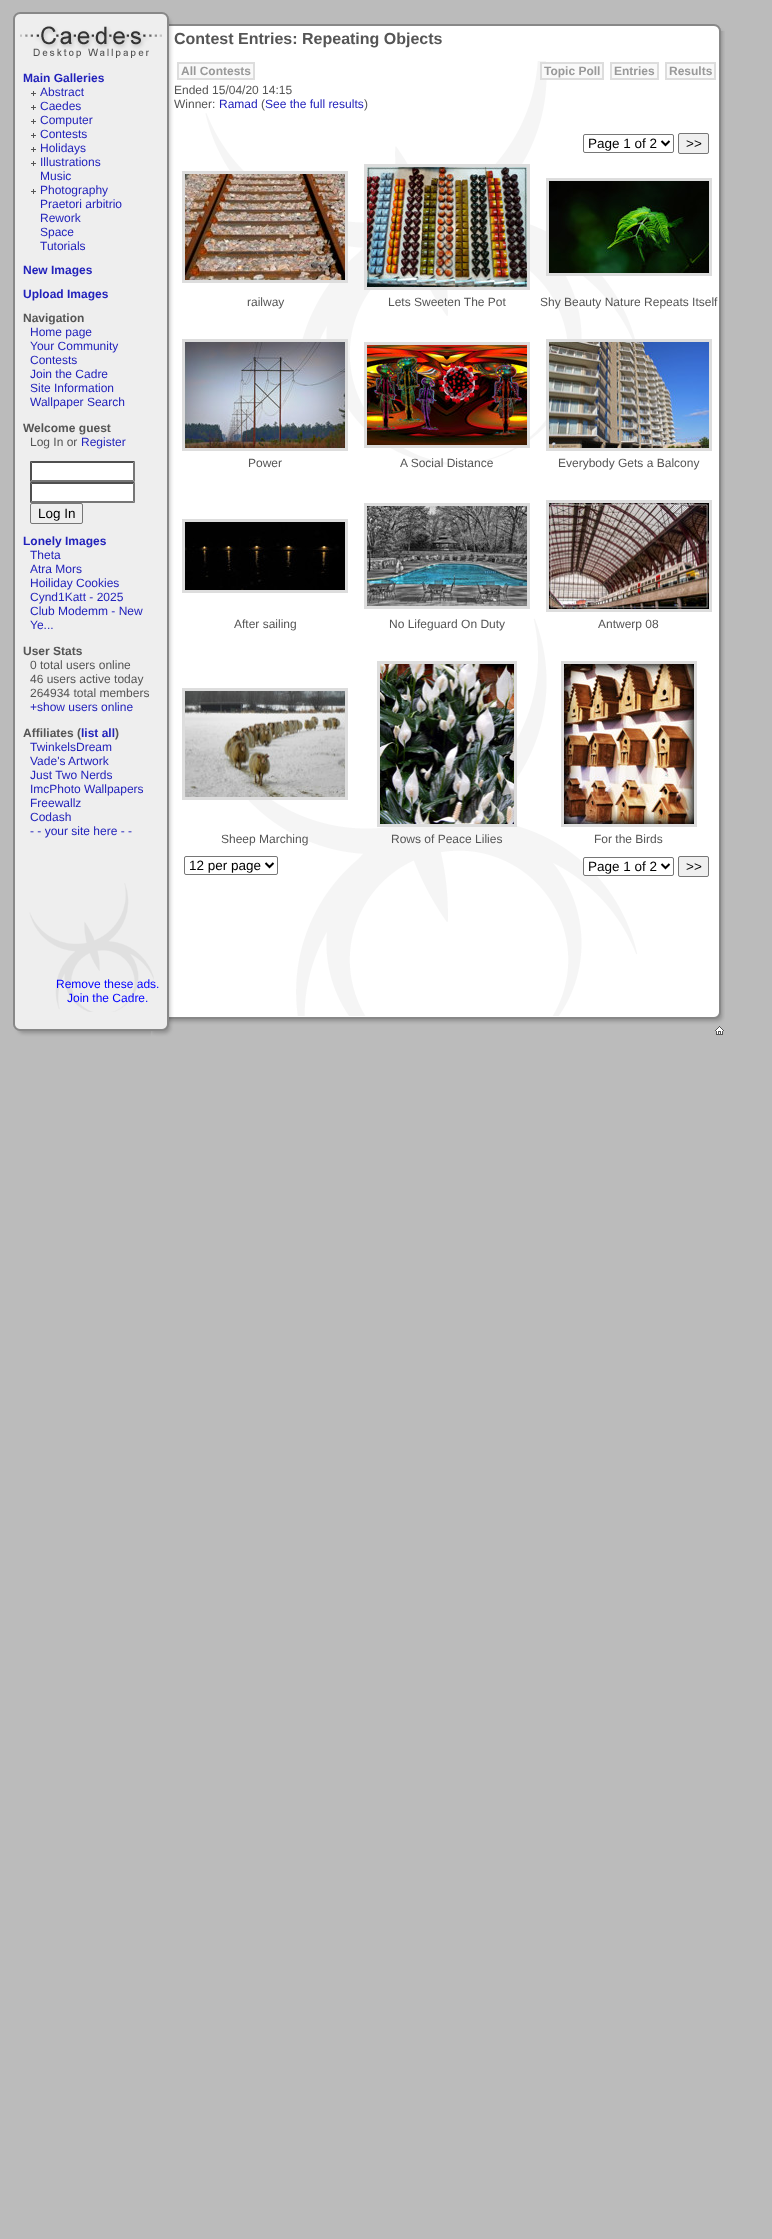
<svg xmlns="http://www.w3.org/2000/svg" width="772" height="2239">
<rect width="100%" height="100%" fill="#bbb"/>
<image x="13" y="61" width="712" height="955" href="media/1.png"/>
<image x="13" y="883" width="712" height="165" href="media/2.png"/>
<image x="13" y="8" width="712" height="53" href="media/3.png"/>
<text x="23" y="82" style="font-family:Liberation Sans;font-size:12px;font-weight:bold;fill:#22b">Main Galleries</text>
<image x="31" y="91" width="5" height="5" href="media/4.png"/>
<text x="40" y="96" style="font-family:Liberation Sans;font-size:12px;fill:#22b">Abstract</text>
<image x="31" y="105" width="5" height="5" href="media/4.png"/>
<text x="40" y="110" style="font-family:Liberation Sans;font-size:12px;fill:#22b">Caedes</text>
<image x="31" y="119" width="5" height="5" href="media/4.png"/>
<text x="40" y="124" style="font-family:Liberation Sans;font-size:12px;fill:#22b">Computer</text>
<image x="31" y="133" width="5" height="5" href="media/4.png"/>
<text x="40" y="138" style="font-family:Liberation Sans;font-size:12px;fill:#22b">Contests</text>
<image x="31" y="147" width="5" height="5" href="media/4.png"/>
<text x="40" y="152" style="font-family:Liberation Sans;font-size:12px;fill:#22b">Holidays</text>
<image x="31" y="161" width="5" height="5" href="media/4.png"/>
<text x="40" y="166" style="font-family:Liberation Sans;font-size:12px;fill:#22b">Illustrations</text>
<text x="40" y="180" style="font-family:Liberation Sans;font-size:12px;fill:#22b">Music</text>
<image x="31" y="189" width="5" height="5" href="media/4.png"/>
<text x="40" y="194" style="font-family:Liberation Sans;font-size:12px;fill:#22b">Photography</text>
<text x="40" y="208" style="font-family:Liberation Sans;font-size:12px;fill:#22b">Praetori arbitrio</text>
<text x="40" y="222" style="font-family:Liberation Sans;font-size:12px;fill:#22b">Rework</text>
<text x="40" y="236" style="font-family:Liberation Sans;font-size:12px;fill:#22b">Space</text>
<text x="40" y="250" style="font-family:Liberation Sans;font-size:12px;fill:#22b">Tutorials</text>
<text x="23" y="274" style="font-family:Liberation Sans;font-size:12px;font-weight:bold;fill:#22b">New Images</text>
<text x="23" y="298" style="font-family:Liberation Sans;font-size:12px;font-weight:bold;fill:#22b">Upload Images</text>
<text x="23" y="322" style="font-family:Liberation Sans;font-size:12px;font-weight:bold;fill:#555">Navigation</text>
<text x="30" y="336" style="font-family:Liberation Sans;font-size:12px;fill:#22b">Home page</text>
<text x="30" y="350" style="font-family:Liberation Sans;font-size:12px;fill:#22b">Your Community</text>
<text x="30" y="364" style="font-family:Liberation Sans;font-size:12px;fill:#22b">Contests</text>
<text x="30" y="378" style="font-family:Liberation Sans;font-size:12px;fill:#22b">Join the Cadre</text>
<text x="30" y="392" style="font-family:Liberation Sans;font-size:12px;fill:#22b">Site Information</text>
<text x="30" y="406" style="font-family:Liberation Sans;font-size:12px;fill:#22b">Wallpaper Search</text>
<text x="23" y="432" style="font-family:Liberation Sans;font-size:12px;font-weight:bold;fill:#555">Welcome guest</text>
<text x="30" y="446" style="font-family:Liberation Sans;font-size:12px;fill:#555">Log In or</text>
<text x="81" y="446" style="font-family:Liberation Sans;font-size:12px;fill:#22b">Register</text>
<rect x="30" y="461" width="105" height="42" fill="#fff"/>
<path d="M30 461h105l-2 2h-101z" fill="#4f4f4f"/>
<path d="M135 461v21l-2-2v-17z" fill="#767676"/>
<path d="M135 482h-105l2-2h101z" fill="#767676"/>
<path d="M30 482v-21l2 2v17z" fill="#4f4f4f"/>
<path d="M30 482h105l-2 2h-101z" fill="#4f4f4f"/>
<path d="M135 482v21l-2-2v-17z" fill="#767676"/>
<path d="M135 503h-105l2-2h101z" fill="#767676"/>
<path d="M30 503v-21l2 2v17z" fill="#4f4f4f"/>
<rect x="30.5" y="503.5" width="52" height="20" rx="1.5" fill="none" stroke="#767676"/>
<text x="38" y="518" style="font-family:Liberation Sans;font-size:13.5px;fill:#000">Log In</text>
<text x="23" y="545" style="font-family:Liberation Sans;font-size:12px;font-weight:bold;fill:#22b">Lonely Images</text>
<text x="30" y="559" style="font-family:Liberation Sans;font-size:12px;fill:#22b">Theta</text>
<text x="30" y="573" style="font-family:Liberation Sans;font-size:12px;fill:#22b">Atra Mors</text>
<text x="30" y="587" style="font-family:Liberation Sans;font-size:12px;fill:#22b">Hoiliday Cookies</text>
<text x="30" y="601" style="font-family:Liberation Sans;font-size:12px;fill:#22b">Cynd1Katt - 2025</text>
<text x="30" y="615" style="font-family:Liberation Sans;font-size:12px;fill:#22b">Club Modemm - New</text>
<text x="30" y="629" style="font-family:Liberation Sans;font-size:12px;fill:#22b">Ye...</text>
<text x="23" y="655" style="font-family:Liberation Sans;font-size:12px;font-weight:bold;fill:#555">User Stats</text>
<text x="30" y="669" style="font-family:Liberation Sans;font-size:12px;fill:#555">0 total users online</text>
<text x="30" y="683" style="font-family:Liberation Sans;font-size:12px;fill:#555">46 users active today</text>
<text x="30" y="697" style="font-family:Liberation Sans;font-size:12px;fill:#555">264934 total members</text>
<text x="30" y="711" style="font-family:Liberation Sans;font-size:12px;fill:#22b">+show users online</text>
<text x="23" y="737" style="font-family:Liberation Sans;font-size:12px;font-weight:bold;fill:#555">Affiliates (</text>
<text x="81" y="737" style="font-family:Liberation Sans;font-size:12px;font-weight:bold;fill:#22b">list all</text>
<text x="115" y="737" style="font-family:Liberation Sans;font-size:12px;font-weight:bold;fill:#555">)</text>
<text x="30" y="751" style="font-family:Liberation Sans;font-size:12px;fill:#22b">TwinkelsDream</text>
<text x="30" y="765" style="font-family:Liberation Sans;font-size:12px;fill:#22b">Vade's Artwork</text>
<text x="30" y="779" style="font-family:Liberation Sans;font-size:12px;fill:#22b">Just Two Nerds</text>
<text x="30" y="793" style="font-family:Liberation Sans;font-size:12px;fill:#22b">ImcPhoto Wallpapers</text>
<text x="30" y="807" style="font-family:Liberation Sans;font-size:12px;fill:#22b">Freewallz</text>
<text x="30" y="821" style="font-family:Liberation Sans;font-size:12px;fill:#22b">Codash</text>
<text x="30" y="835" style="font-family:Liberation Sans;font-size:12px;fill:#22b">- - your site here - -</text>
<text x="174" y="44" style="font-family:Liberation Sans;font-size:16px;font-weight:bold;fill:#555">Contest Entries: Repeating Objects</text>
<rect x="178" y="63" width="76" height="16" fill="#f9f9f9" stroke="#ddd" stroke-width="2"/>
<text x="181" y="75" style="font-family:Liberation Sans;font-size:12px;font-weight:bold;fill:#999">All Contests</text>
<rect x="541" y="63" width="62" height="16" fill="#f9f9f9" stroke="#ddd" stroke-width="2"/>
<text x="544" y="75" style="font-family:Liberation Sans;font-size:12px;font-weight:bold;fill:#999">Topic Poll</text>
<rect x="611" y="63" width="47" height="16" fill="#f9f9f9" stroke="#ddd" stroke-width="2"/>
<text x="614" y="75" style="font-family:Liberation Sans;font-size:12px;font-weight:bold;fill:#999">Entries</text>
<rect x="666" y="63" width="49" height="16" fill="#f9f9f9" stroke="#ddd" stroke-width="2"/>
<text x="669" y="75" style="font-family:Liberation Sans;font-size:12px;font-weight:bold;fill:#999">Results</text>
<text x="174" y="94" style="font-family:Liberation Sans;font-size:12px;fill:#555">Ended 15/04/20 14:15</text>
<text x="174" y="108" style="font-family:Liberation Sans;font-size:12px;fill:#555">Winner:</text>
<text x="219" y="108" style="font-family:Liberation Sans;font-size:12px;fill:#22b">Ramad</text>
<text x="261" y="108" style="font-family:Liberation Sans;font-size:12px;fill:#555">(</text>
<text x="265" y="108" style="font-family:Liberation Sans;font-size:12px;fill:#22b">See the full results</text>
<text x="364" y="108" style="font-family:Liberation Sans;font-size:12px;fill:#555">)</text>
<rect x="583.5" y="134.5" width="90" height="18" rx="1.5" fill="none" stroke="#767676"/>
<path d="M661.5 141l4 4l4-4" fill="none" stroke="#000" stroke-width="2"/>
<text x="588" y="148" style="font-family:Liberation Sans;font-size:13.5px;fill:#000">Page 1 of 2</text>
<rect x="678.5" y="133.5" width="30" height="20" rx="1.5" fill="#efefef" stroke="#767676"/>
<text x="686" y="148" style="font-family:Liberation Sans;font-size:13.5px;fill:#000">&gt;&gt;</text>
<rect x="183.5" y="172.5" width="163" height="109" fill="none" stroke="#ddd" stroke-width="3"/>
<image x="185" y="174" width="160" height="106" href="media/5.png"/>
<rect x="365.5" y="165.5" width="163" height="123" fill="none" stroke="#ddd" stroke-width="3"/>
<image x="367" y="167" width="160" height="120" href="media/6.png"/>
<rect x="547.5" y="179.5" width="163" height="95" fill="none" stroke="#ddd" stroke-width="3"/>
<image x="549" y="181" width="160" height="92" href="media/7.png"/>
<text x="247" y="306" style="font-family:Liberation Sans;font-size:12px;fill:#555">railway</text>
<text x="388" y="306" style="font-family:Liberation Sans;font-size:12px;fill:#555">Lets Sweeten The Pot</text>
<text x="540" y="306" style="font-family:Liberation Sans;font-size:12px;fill:#555">Shy Beauty Nature Repeats Itself</text>
<rect x="183.5" y="340.5" width="163" height="109" fill="none" stroke="#ddd" stroke-width="3"/>
<image x="185" y="342" width="160" height="106" href="media/8.png"/>
<rect x="365.5" y="343.5" width="163" height="103" fill="none" stroke="#ddd" stroke-width="3"/>
<image x="367" y="345" width="160" height="100" href="media/9.png"/>
<rect x="547.5" y="340.5" width="163" height="109" fill="none" stroke="#ddd" stroke-width="3"/>
<image x="549" y="342" width="160" height="106" href="media/10.png"/>
<text x="248" y="467" style="font-family:Liberation Sans;font-size:12px;fill:#555">Power</text>
<text x="400" y="467" style="font-family:Liberation Sans;font-size:12px;fill:#555">A Social Distance</text>
<text x="558" y="467" style="font-family:Liberation Sans;font-size:12px;fill:#555">Everybody Gets a Balcony</text>
<rect x="183.5" y="520.5" width="163" height="71" fill="none" stroke="#ddd" stroke-width="3"/>
<image x="185" y="522" width="160" height="68" href="media/11.png"/>
<rect x="365.5" y="504.5" width="163" height="103" fill="none" stroke="#ddd" stroke-width="3"/>
<image x="367" y="506" width="160" height="100" href="media/12.png"/>
<rect x="547.5" y="501.5" width="163" height="109" fill="none" stroke="#ddd" stroke-width="3"/>
<image x="549" y="503" width="160" height="106" href="media/13.png"/>
<text x="234" y="628" style="font-family:Liberation Sans;font-size:12px;fill:#555">After sailing</text>
<text x="389" y="628" style="font-family:Liberation Sans;font-size:12px;fill:#555">No Lifeguard On Duty</text>
<text x="598" y="628" style="font-family:Liberation Sans;font-size:12px;fill:#555">Antwerp 08</text>
<rect x="183.5" y="689.5" width="163" height="109" fill="none" stroke="#ddd" stroke-width="3"/>
<image x="185" y="691" width="160" height="106" href="media/14.png"/>
<rect x="378.5" y="662.5" width="137" height="163" fill="none" stroke="#ddd" stroke-width="3"/>
<image x="380" y="664" width="134" height="160" href="media/15.png"/>
<rect x="562.5" y="662.5" width="133" height="163" fill="none" stroke="#ddd" stroke-width="3"/>
<image x="564" y="664" width="130" height="160" href="media/16.png"/>
<text x="221" y="843" style="font-family:Liberation Sans;font-size:12px;fill:#555">Sheep Marching</text>
<text x="391" y="843" style="font-family:Liberation Sans;font-size:12px;fill:#555">Rows of Peace Lilies</text>
<text x="594" y="843" style="font-family:Liberation Sans;font-size:12px;fill:#555">For the Birds</text>
<rect x="184.5" y="856.5" width="93" height="18" rx="1.5" fill="none" stroke="#767676"/>
<path d="M265.5 863l4 4l4-4" fill="none" stroke="#000" stroke-width="2"/>
<text x="189" y="870" style="font-family:Liberation Sans;font-size:13.5px;fill:#000">12 per page</text>
<rect x="583.5" y="857.5" width="90" height="18" rx="1.5" fill="#fff" stroke="#767676"/>
<path d="M661.5 864l4 4l4-4" fill="none" stroke="#000" stroke-width="2"/>
<text x="588" y="871" style="font-family:Liberation Sans;font-size:13.5px;fill:#000">Page 1 of 2</text>
<rect x="678.5" y="856.5" width="30" height="20" rx="1.5" fill="#efefef" stroke="#767676"/>
<text x="686" y="871" style="font-family:Liberation Sans;font-size:13.5px;fill:#000">&gt;&gt;</text>
<text x="56" y="988" style="font-family:Liberation Sans;font-size:12px;fill:#00f">Remove these ads.</text>
<text x="67" y="1002" style="font-family:Liberation Sans;font-size:12px;fill:#00f">Join the Cadre.</text>
</svg>
